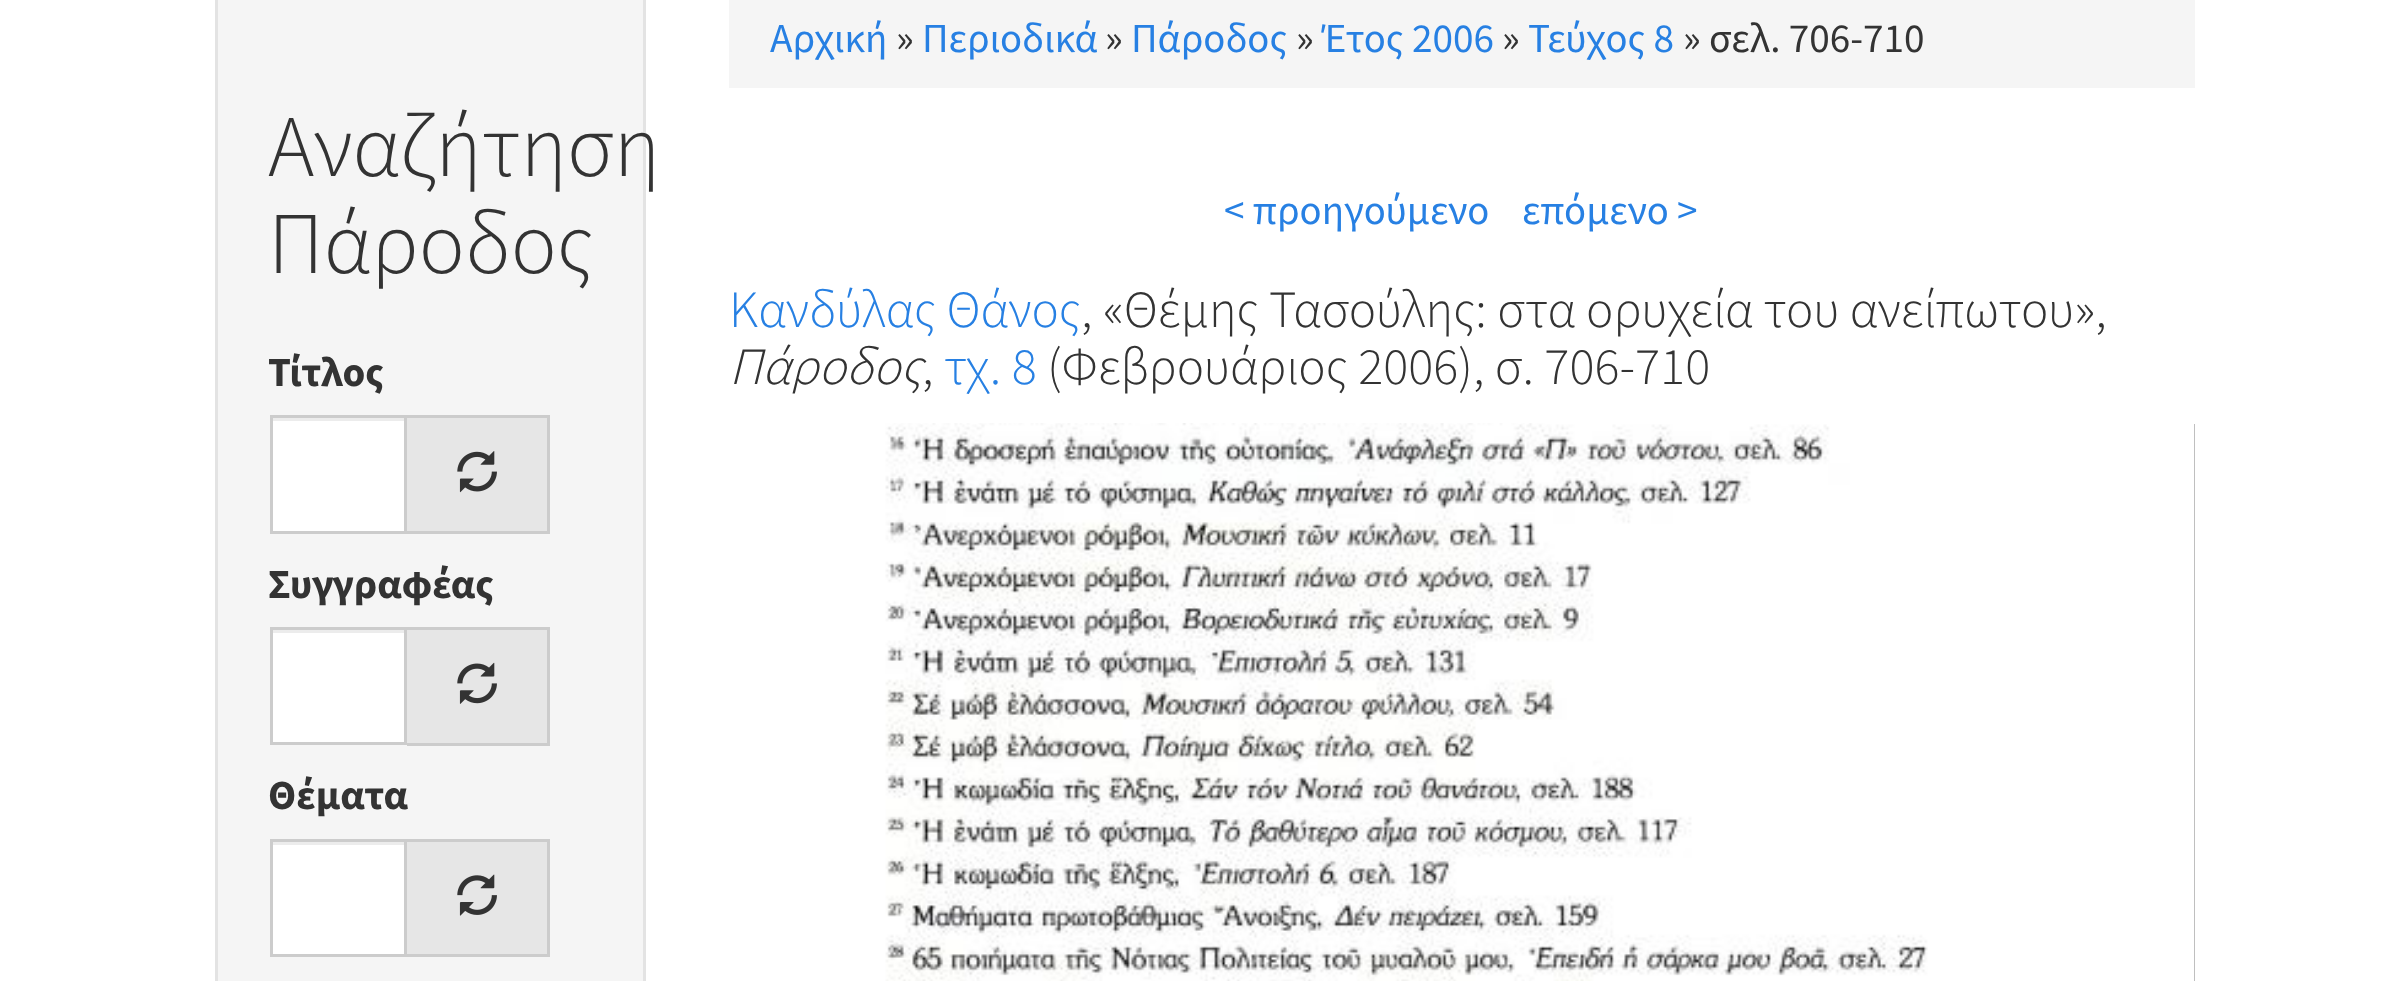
<svg xmlns="http://www.w3.org/2000/svg" width="2406" height="981">
<rect width="100%" height="100%" fill="#fff"/>
<rect x="216.5" y="-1.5" width="428" height="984" fill="#f5f5f5" stroke="#e3e3e3" stroke-width="3"/>
<text x="268" y="176" style="font-family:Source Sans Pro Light;font-size:88px;font-weight:300;fill:#333">Αναζήτηση</text>
<text x="268" y="273" style="font-family:Source Sans Pro Light;font-size:88px;font-weight:300;fill:#333">Πάροδος</text>
<text x="268" y="386" style="font-family:Source Sans Pro;font-size:41.25px;font-weight:bold;fill:#333">Τίτλος</text>
<rect x="273" y="421" width="131" height="110" fill="#fff"/>
<rect x="272" y="418" width="132" height="3" fill="#ececec"/>
<rect x="271.5" y="416.5" width="134" height="116" fill="none" stroke="#ccc" stroke-width="3"/>
<rect x="407" y="418" width="140" height="113" fill="#e6e6e6"/>
<rect x="407" y="415" width="143" height="3" fill="#ccc"/>
<rect x="547" y="415" width="3" height="119" fill="#ccc"/>
<rect x="407" y="531" width="143" height="3" fill="#ccc"/>
<image x="457" y="451" width="40" height="42" href="media/1.png"/>
<text x="268" y="598" style="font-family:Source Sans Pro;font-size:41.25px;font-weight:bold;fill:#333">Συγγραφέας</text>
<rect x="273" y="633" width="131" height="109" fill="#fff"/>
<rect x="272" y="630" width="132" height="3" fill="#ececec"/>
<rect x="271.5" y="628.5" width="134" height="115" fill="none" stroke="#ccc" stroke-width="3"/>
<rect x="407" y="630" width="140" height="113" fill="#e6e6e6"/>
<rect x="407" y="627" width="143" height="3" fill="#ccc"/>
<rect x="547" y="627" width="3" height="118" fill="#ccc"/>
<rect x="407" y="743" width="143" height="3" fill="#ccc"/>
<image x="457" y="662" width="40" height="42" href="media/2.png"/>
<text x="268" y="809" style="font-family:Source Sans Pro;font-size:41.25px;font-weight:bold;fill:#333">Θέματα</text>
<rect x="273" y="845" width="131" height="109" fill="#fff"/>
<rect x="272" y="842" width="132" height="3" fill="#ececec"/>
<rect x="271.5" y="840.5" width="134" height="115" fill="none" stroke="#ccc" stroke-width="3"/>
<rect x="407" y="842" width="140" height="112" fill="#e6e6e6"/>
<rect x="407" y="839" width="143" height="3" fill="#ccc"/>
<rect x="547" y="839" width="3" height="118" fill="#ccc"/>
<rect x="407" y="954" width="143" height="3" fill="#ccc"/>
<image x="457" y="874" width="40" height="42" href="media/3.png"/>
<rect x="729" width="1466" height="88" fill="#f5f5f5"/>
<text x="770" y="52" style="font-family:Source Sans Pro;font-size:41.25px;fill:#2780e3">Αρχική</text>
<text x="896" y="52" style="font-family:Source Sans Pro;font-size:41.25px;fill:#333">»</text>
<text x="922" y="52" style="font-family:Source Sans Pro;font-size:41.25px;fill:#2780e3">Περιοδικά</text>
<text x="1105" y="52" style="font-family:Source Sans Pro;font-size:41.25px;fill:#333">»</text>
<text x="1131" y="52" style="font-family:Source Sans Pro;font-size:41.25px;fill:#2780e3">Πάροδος</text>
<text x="1296" y="52" style="font-family:Source Sans Pro;font-size:41.25px;fill:#333">»</text>
<text x="1322" y="52" style="font-family:Source Sans Pro;font-size:41.25px;fill:#2780e3">Έτος 2006</text>
<text x="1502" y="52" style="font-family:Source Sans Pro;font-size:41.25px;fill:#333">»</text>
<text x="1528" y="52" style="font-family:Source Sans Pro;font-size:41.25px;fill:#2780e3">Τεύχος 8</text>
<text x="1683" y="52" style="font-family:Source Sans Pro;font-size:41.25px;fill:#333">» σελ. 706-710</text>
<text x="1224" y="224" style="font-family:Source Sans Pro;font-size:41.25px;fill:#2780e3">&lt; προηγούμενο</text>
<text x="1522" y="224" style="font-family:Source Sans Pro;font-size:41.25px;fill:#2780e3">επόμενο &gt;</text>
<text x="729" y="327" style="font-family:Source Sans Pro Light;font-size:52.25px;font-weight:300;fill:#2780e3">Κανδύλας Θάνος</text>
<text x="1081" y="327" style="font-family:Source Sans Pro Light;font-size:52.25px;font-weight:300;fill:#333">, «Θέμης Τασούλης: στα ορυχεία του ανείπωτου»,</text>
<text x="729" y="384" style="font-family:Source Sans Pro Light;font-size:52.25px;font-weight:300;font-style:italic;fill:#333">Πάροδος</text>
<text x="922" y="384" style="font-family:Source Sans Pro Light;font-size:52.25px;font-weight:300;fill:#333">,</text>
<text x="944" y="384" style="font-family:Source Sans Pro Light;font-size:52.25px;font-weight:300;fill:#2780e3">τχ. 8</text>
<text x="1047" y="384" style="font-family:Source Sans Pro Light;font-size:52.25px;font-weight:300;fill:#333">(Φεβρουάριος 2006), σ. 706-710</text>
<rect x="2194" y="424" width="1" height="557" fill="#aaa"/>
<image x="729" y="423" width="1466" height="558" href="media/4.png"/>
</svg>
